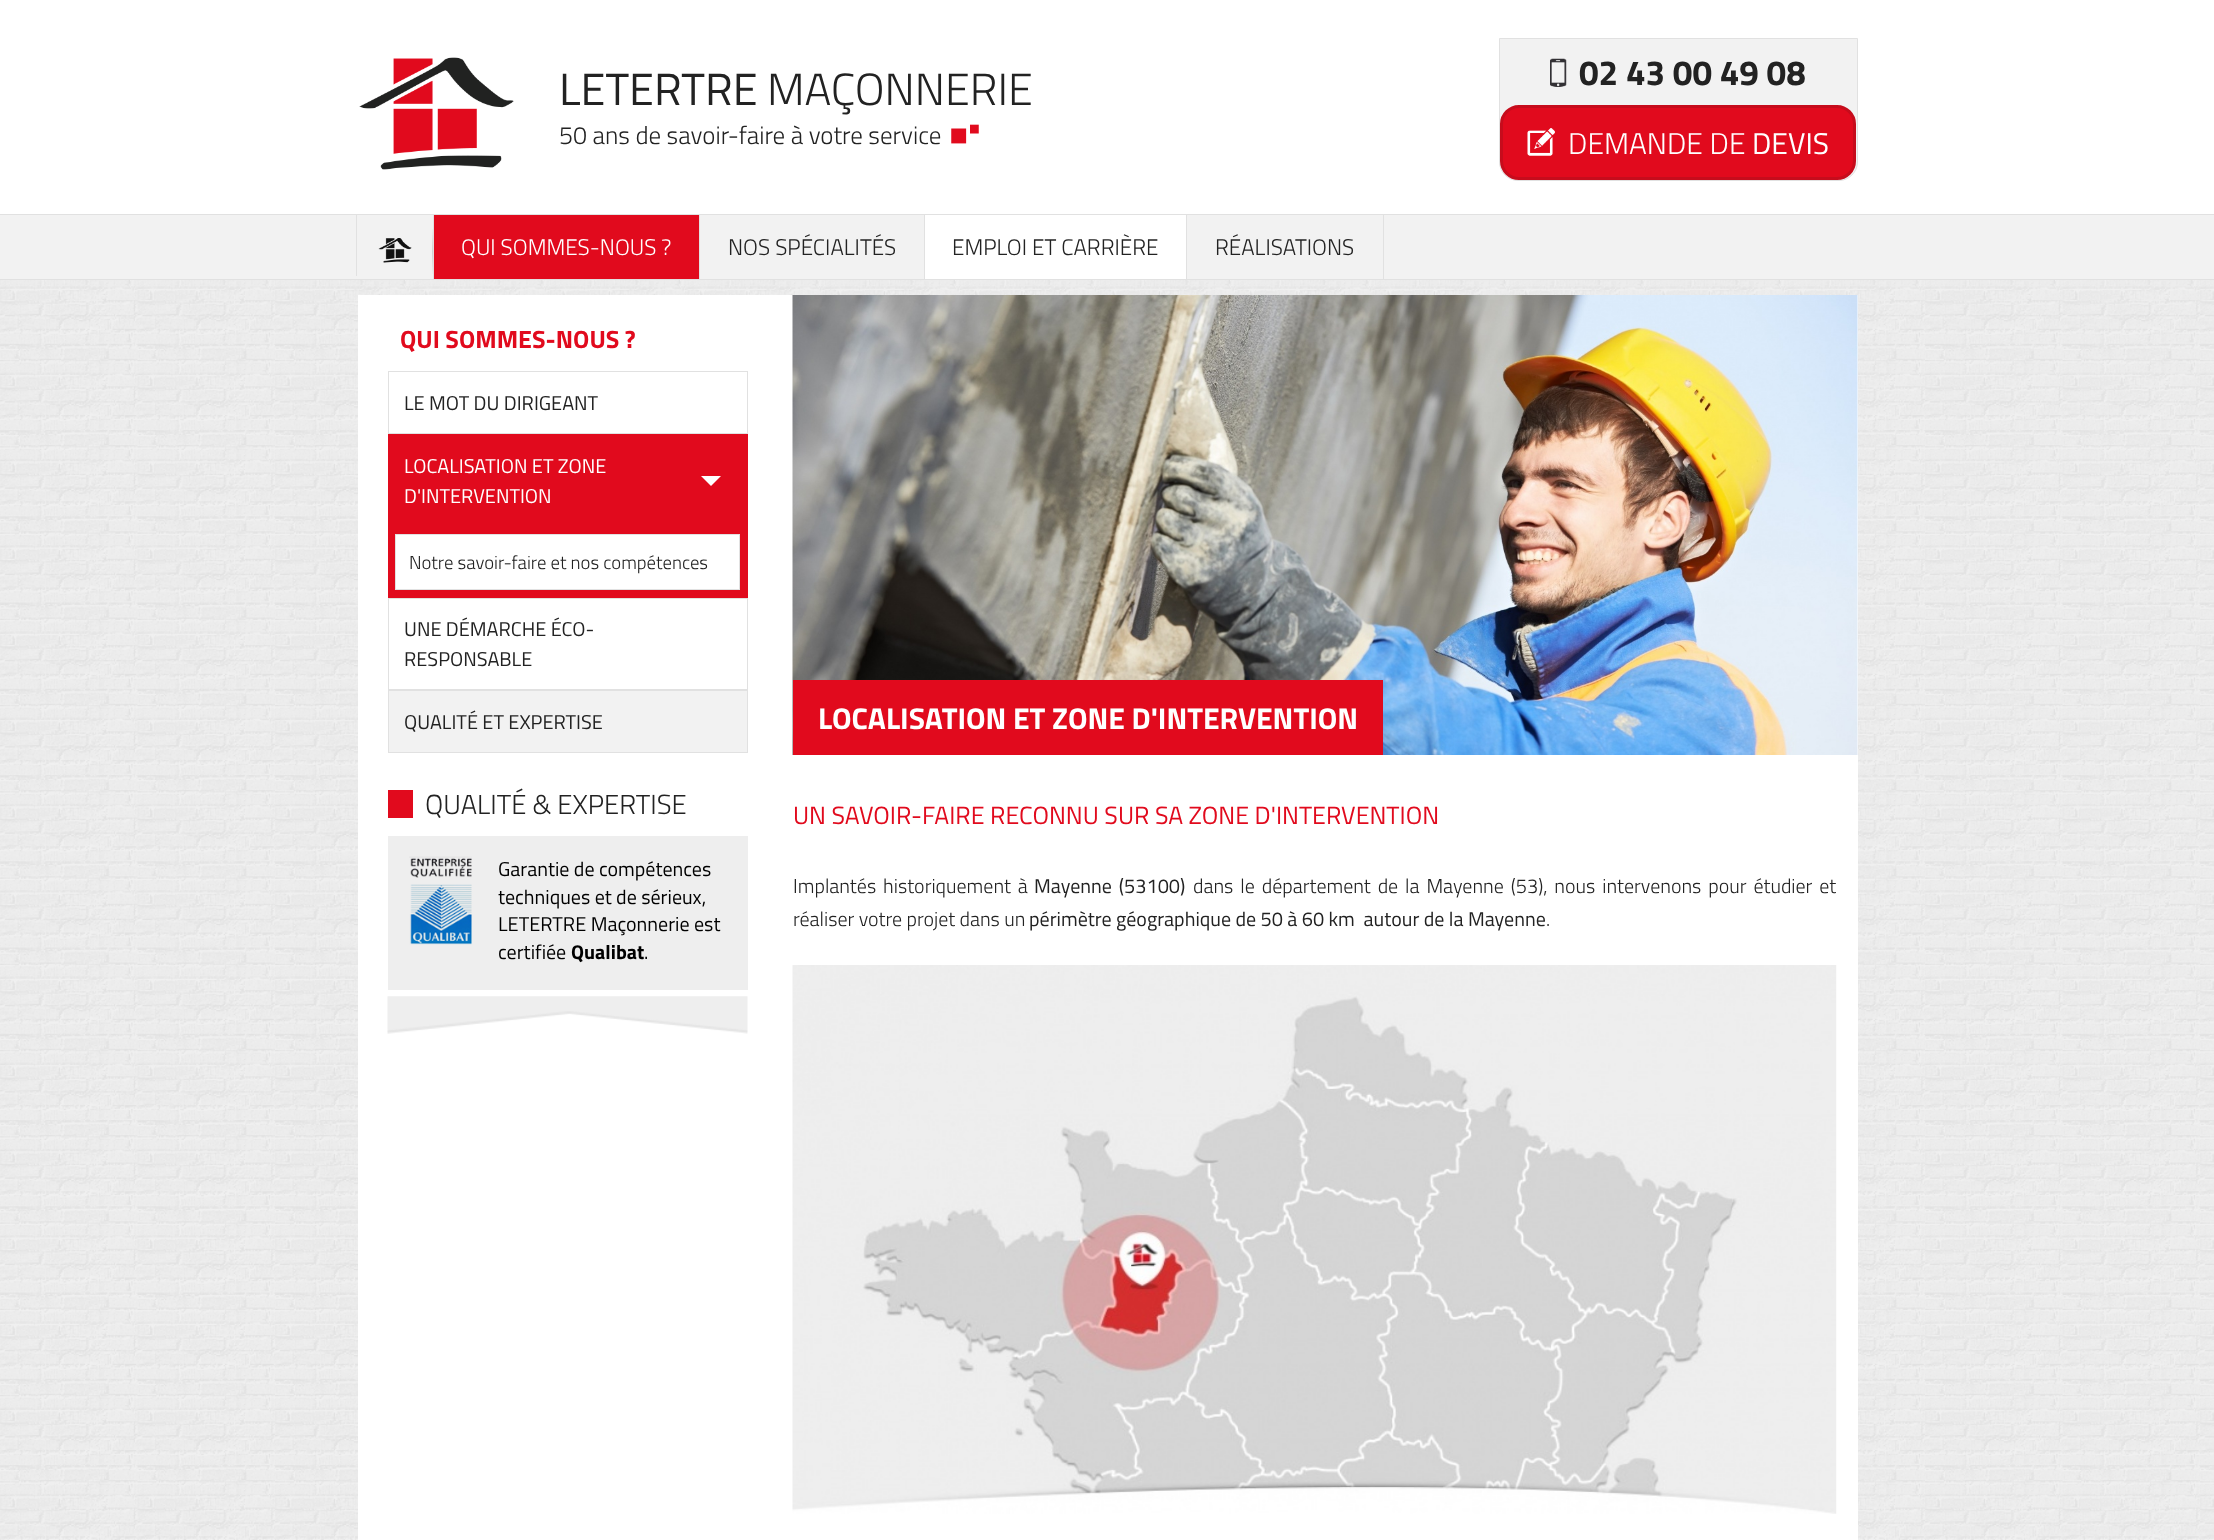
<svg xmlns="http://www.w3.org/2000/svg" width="2214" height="1540">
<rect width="100%" height="100%" fill="#fff"/>
<image x="0" y="280" width="2214" height="1260" href="media/1.png"/>
<image x="359" y="57" width="155" height="113" href="media/2.png"/>
<text x="559" y="105" style="font-family:Titillium Web;font-size:45px;fill:#222">LETERTRE</text>
<text x="767" y="105" style="font-family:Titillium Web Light;font-size:45px;font-weight:300;fill:#222">MAÇONNERIE</text>
<text x="559" y="144" style="font-family:Titillium Web Light;font-size:25px;font-weight:300;fill:#222">50 ans de savoir-faire à votre service</text>
<image x="951" y="124" width="28" height="20" href="media/3.png"/>
<path d="M1499.5 38.5h358v123.5c0 10-8.5 18.5-18.5 18.5h-321c-10 0-18.5-8.5-18.5-18.5z" fill="#f2f2f2" stroke="#e1e1e1"/>
<image x="1550" y="58" width="17" height="29" href="media/4.png"/>
<text x="1579" y="85" style="font-family:Titillium Web;font-size:35px;font-weight:bold;fill:#222">02 43 00 49 08</text>
<rect x="1501.5" y="106.5" width="353" height="72" rx="17.5" fill="#e10a1d" stroke="#c60c1c" stroke-width="3"/>
<image x="1527" y="128" width="28" height="28" href="media/5.png"/>
<text x="1568" y="154" style="font-family:Titillium Web Light;font-size:30px;font-weight:300;fill:#fff">DEMANDE DE</text>
<text x="1752" y="154" style="font-family:Titillium Web;font-size:30px;fill:#fff">DEVIS</text>
<rect y="215" width="2214" height="64" fill="#f2f2f2"/>
<rect y="214" width="2214" height="1" fill="#e1e1e1"/>
<rect y="279" width="2214" height="1" fill="#e1e1e1"/>
<rect x="356" y="215" width="1" height="61" fill="#e1e1e1"/>
<image x="378" y="238" width="34" height="25" href="media/6.png"/>
<image x="432" y="229" width="1" height="45" href="media/7.png"/>
<rect x="434" y="215" width="265" height="64" fill="#e10a1d"/>
<rect x="433" y="215" width="1" height="64" fill="#e1e1e1"/>
<text x="461" y="255" style="font-family:Titillium Web Light;font-size:22.5px;font-weight:300;fill:#fff">QUI SOMMES-NOUS ?</text>
<rect x="699" y="215" width="1" height="64" fill="#e1e1e1"/>
<text x="728" y="255" style="font-family:Titillium Web Light;font-size:22.5px;font-weight:300;fill:#222">NOS SPÉCIALITÉS</text>
<rect x="925" y="215" width="261" height="64" fill="#fff"/>
<rect x="924" y="215" width="1" height="64" fill="#e1e1e1"/>
<text x="952" y="255" style="font-family:Titillium Web Light;font-size:22.5px;font-weight:300;fill:#222">EMPLOI ET CARRIÈRE</text>
<rect x="1383" y="215" width="1" height="64" fill="#e1e1e1"/>
<rect x="1186" y="215" width="1" height="64" fill="#e1e1e1"/>
<text x="1215" y="255" style="font-family:Titillium Web Light;font-size:22.5px;font-weight:300;fill:#222">RÉALISATIONS</text>
<rect x="358" y="295" width="1500" height="1245" fill="#fff"/>
<text x="400" y="348" style="font-family:Titillium Web;font-size:25px;font-weight:bold;fill:#e10a1d">QUI SOMMES-NOUS ?</text>
<rect x="388.5" y="371.5" width="359" height="62" fill="none" stroke="#e1e1e1"/>
<text x="404" y="410" style="font-family:Titillium Web;font-size:20px;fill:#222">LE MOT DU DIRIGEANT</text>
<rect x="388" y="434" width="360" height="164" fill="#e10a1d"/>
<text x="404" y="473" style="font-family:Titillium Web;font-size:20px;fill:#fff">LOCALISATION ET ZONE</text>
<path d="M701 476h20l-10 10z" fill="#fff"/>
<text x="404" y="503" style="font-family:Titillium Web;font-size:20px;fill:#fff">D'INTERVENTION</text>
<rect x="395.5" y="534.5" width="344" height="55" fill="#fff" stroke="#e1e1e1"/>
<text x="409" y="569" style="font-family:Titillium Web Light;font-size:18.75px;font-weight:300;fill:#222">Notre savoir-faire et nos compétences</text>
<rect x="388.5" y="598.5" width="359" height="91" fill="none" stroke="#e1e1e1"/>
<text x="404" y="636" style="font-family:Titillium Web;font-size:20px;fill:#222">UNE DÉMARCHE ÉCO-</text>
<text x="404" y="666" style="font-family:Titillium Web;font-size:20px;fill:#222">RESPONSABLE</text>
<rect x="388.5" y="690.5" width="359" height="62" fill="#f2f2f2" stroke="#e1e1e1"/>
<text x="404" y="729" style="font-family:Titillium Web;font-size:20px;fill:#222">QUALITÉ ET EXPERTISE</text>
<rect x="388" y="790" width="25" height="28" fill="#e10a1d"/>
<text x="425" y="814" style="font-family:Titillium Web Light;font-size:27.5px;font-weight:300;fill:#222">QUALITÉ &amp; EXPERTISE</text>
<rect x="388" y="836" width="360" height="154" fill="#eee"/>
<image x="409" y="856" width="63" height="89" href="media/8.png"/>
<text x="498" y="876" style="font-family:Titillium Web;font-size:20px;fill:#000">Garantie de compétences</text>
<text x="498" y="904" style="font-family:Titillium Web;font-size:20px;fill:#000">techniques et de sérieux,</text>
<text x="498" y="931" style="font-family:Titillium Web;font-size:20px;fill:#000">LETERTRE Maçonnerie est</text>
<text x="498" y="959" style="font-family:Titillium Web;font-size:20px;fill:#000">certifiée</text>
<text x="571" y="959" style="font-family:Titillium Web;font-size:20px;font-weight:bold;fill:#000">Qualibat</text>
<text x="644" y="959" style="font-family:Titillium Web;font-size:20px;fill:#000">.</text>
<image x="387" y="996" width="361" height="38" href="media/9.png"/>
<image x="792" y="295" width="1066" height="460" href="media/10.png"/>
<rect x="793" y="680" width="590" height="75" fill="#e10a1d"/>
<text x="818" y="729" style="font-family:Titillium Web;font-size:30px;font-weight:bold;fill:#fff">LOCALISATION ET ZONE D'INTERVENTION</text>
<text x="793" y="824" style="font-family:Titillium Web;font-size:25px;fill:#e10a1d">UN SAVOIR-FAIRE RECONNU SUR SA ZONE D'INTERVENTION</text>
<text x="793" y="893" word-spacing="2.5" style="font-family:Titillium Web Light;font-size:20px;font-weight:300;fill:#222">Implantés historiquement à</text>
<text x="1034" y="893" word-spacing="2.5" style="font-family:Titillium Web;font-size:20px;fill:#222">Mayenne (53100)</text>
<text x="1193" y="893" word-spacing="2.5" style="font-family:Titillium Web Light;font-size:20px;font-weight:300;fill:#222">dans le département de la Mayenne (53), nous intervenons pour étudier et</text>
<text x="793" y="926" style="font-family:Titillium Web Light;font-size:20px;font-weight:300;fill:#222">réaliser votre projet dans un</text>
<text x="1029" y="926" style="font-family:Titillium Web;font-size:20px;fill:#222" xml:space="preserve">périmètre géographique de 50 à 60 km  autour de la Mayenne</text>
<text x="1546" y="926" style="font-family:Titillium Web Light;font-size:20px;font-weight:300;fill:#222">.</text>
<image x="792" y="965" width="1045" height="549" href="media/11.png"/>
</svg>
